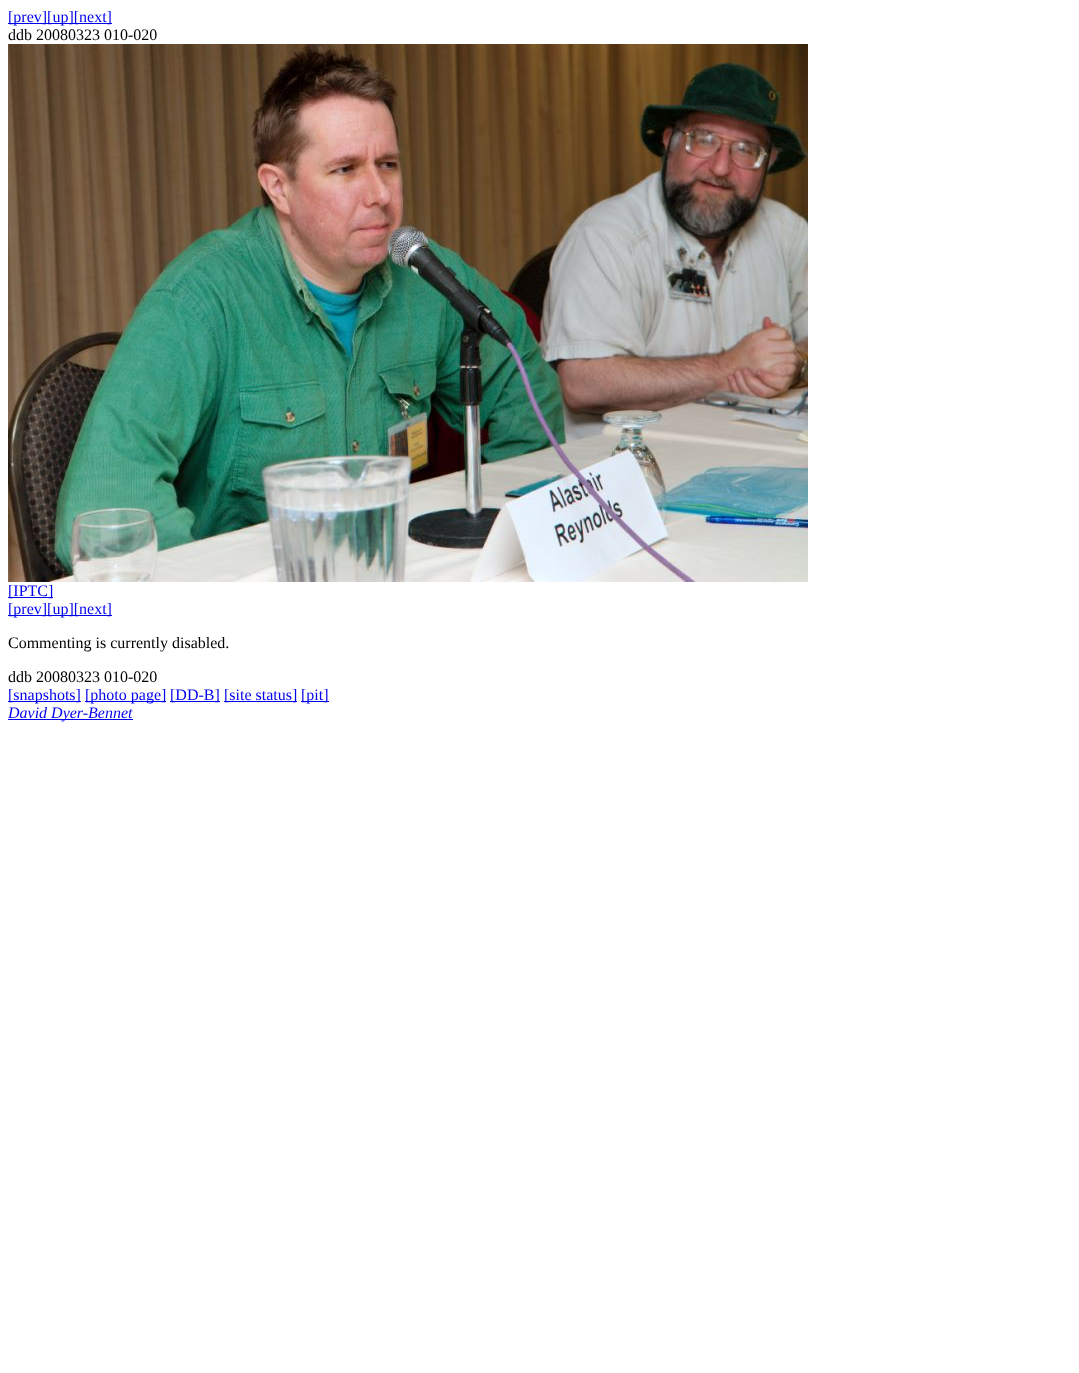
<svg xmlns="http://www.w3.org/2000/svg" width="1079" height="1373">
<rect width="100%" height="100%" fill="#fff"/>
<rect x="8" y="23" width="104" height="1" fill="#00e"/>
<text x="8" y="22" style="font-family:Liberation Serif;font-size:16px;fill:#00e">[prev][up][next]</text>
<text x="8" y="40" style="font-family:Liberation Serif;font-size:16px;fill:#000">ddb 20080323 010-020</text>
<image x="8" y="44" width="800" height="538" href="media/1.png"/>
<rect x="8" y="597" width="45" height="1" fill="#00e"/>
<text x="8" y="596" style="font-family:Liberation Serif;font-size:16px;fill:#00e">[IPTC]</text>
<rect x="8" y="615" width="104" height="1" fill="#00e"/>
<text x="8" y="614" style="font-family:Liberation Serif;font-size:16px;fill:#00e">[prev][up][next]</text>
<text x="8" y="648" style="font-family:Liberation Serif;font-size:16px;fill:#000">Commenting is currently disabled.</text>
<text x="8" y="682" style="font-family:Liberation Serif;font-size:16px;fill:#000">ddb 20080323 010-020</text>
<rect x="8" y="701" width="73" height="1" fill="#00e"/>
<text x="8" y="700" style="font-family:Liberation Serif;font-size:16px;fill:#00e">[snapshots]</text>
<rect x="85" y="701" width="81" height="1" fill="#00e"/>
<text x="85" y="700" style="font-family:Liberation Serif;font-size:16px;fill:#00e">[photo page]</text>
<rect x="170" y="701" width="50" height="1" fill="#00e"/>
<text x="170" y="700" style="font-family:Liberation Serif;font-size:16px;fill:#00e">[DD-B]</text>
<rect x="224" y="701" width="73" height="1" fill="#00e"/>
<text x="224" y="700" style="font-family:Liberation Serif;font-size:16px;fill:#00e">[site status]</text>
<rect x="301" y="701" width="28" height="1" fill="#00e"/>
<text x="301" y="700" style="font-family:Liberation Serif;font-size:16px;fill:#00e">[pit]</text>
<rect x="8" y="719" width="125" height="1" fill="#00e"/>
<text x="8" y="718" style="font-family:Liberation Serif;font-size:16px;font-style:italic;fill:#00e">David Dyer-Bennet</text>
</svg>
